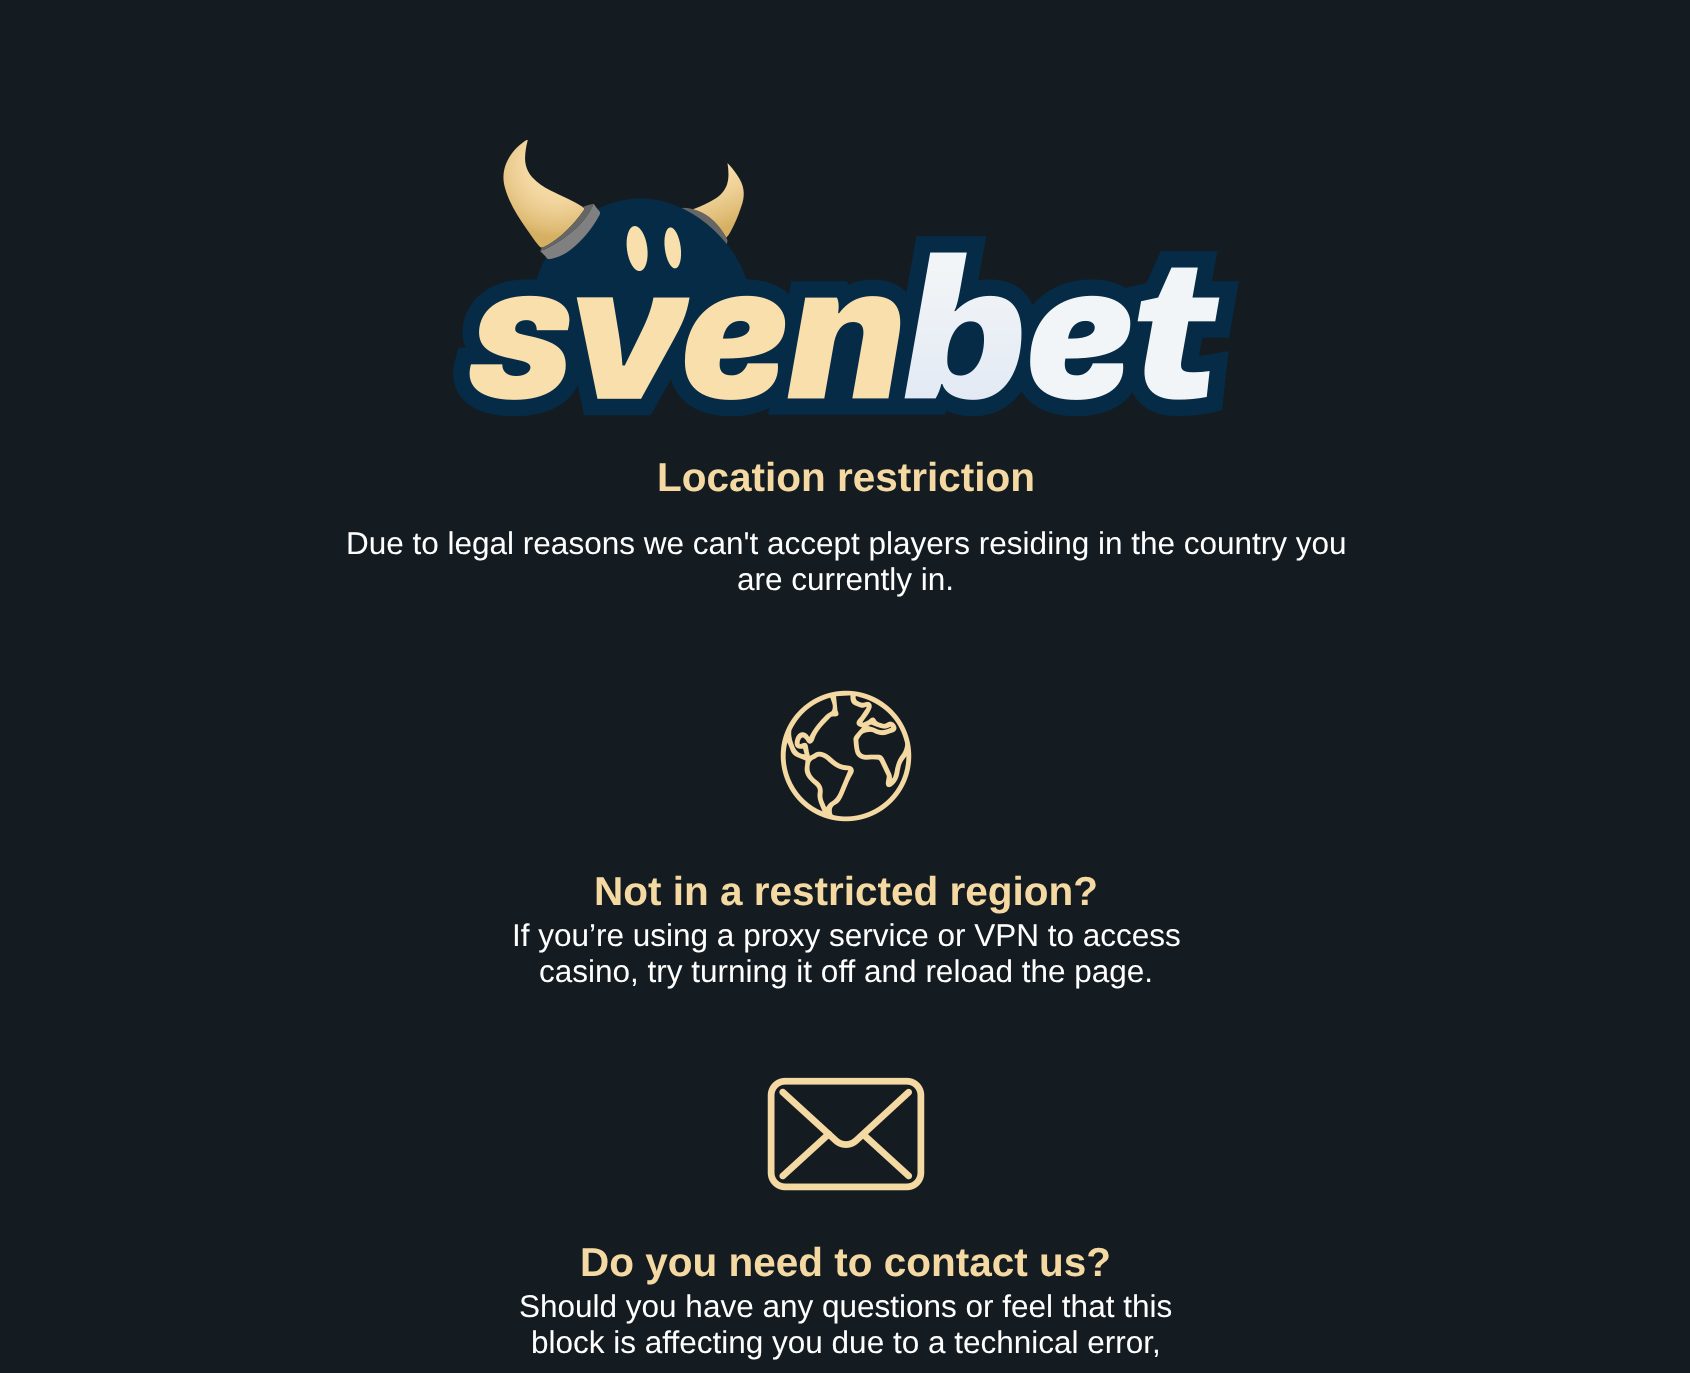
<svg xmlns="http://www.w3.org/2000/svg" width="1690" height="1373">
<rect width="100%" height="100%" fill="#151c21"/>
<image x="453" y="140" width="786" height="276" href="media/1.png"/>
<text x="657" y="491" style="font-family:Liberation Sans;font-size:40.5px;font-weight:bold;fill:#f5d9a3">Location restriction</text>
<text x="346" y="554" style="font-family:Liberation Sans;font-size:31.5px;fill:#fff">Due to legal reasons we can't accept players residing in the country you</text>
<text x="737" y="590" style="font-family:Liberation Sans;font-size:31.5px;fill:#fff">are currently in.</text>
<image x="780" y="690" width="132" height="132" href="media/2.png"/>
<text x="594" y="905" style="font-family:Liberation Sans;font-size:40.5px;font-weight:bold;fill:#f5d9a3">Not in a restricted region?</text>
<text x="512" y="946" style="font-family:Liberation Sans;font-size:31.5px;fill:#fff">If you’re using a proxy service or VPN to access</text>
<text x="539" y="982" style="font-family:Liberation Sans;font-size:31.5px;fill:#fff">casino, try turning it off and reload the page.</text>
<image x="767" y="1077" width="158" height="114" href="media/3.png"/>
<text x="580" y="1276" style="font-family:Liberation Sans;font-size:40.5px;font-weight:bold;fill:#f5d9a3">Do you need to contact us?</text>
<text x="519" y="1317" style="font-family:Liberation Sans;font-size:31.5px;fill:#fff">Should you have any questions or feel that this</text>
<text x="531" y="1353" style="font-family:Liberation Sans;font-size:31.5px;fill:#fff">block is affecting you due to a technical error,</text>
</svg>
